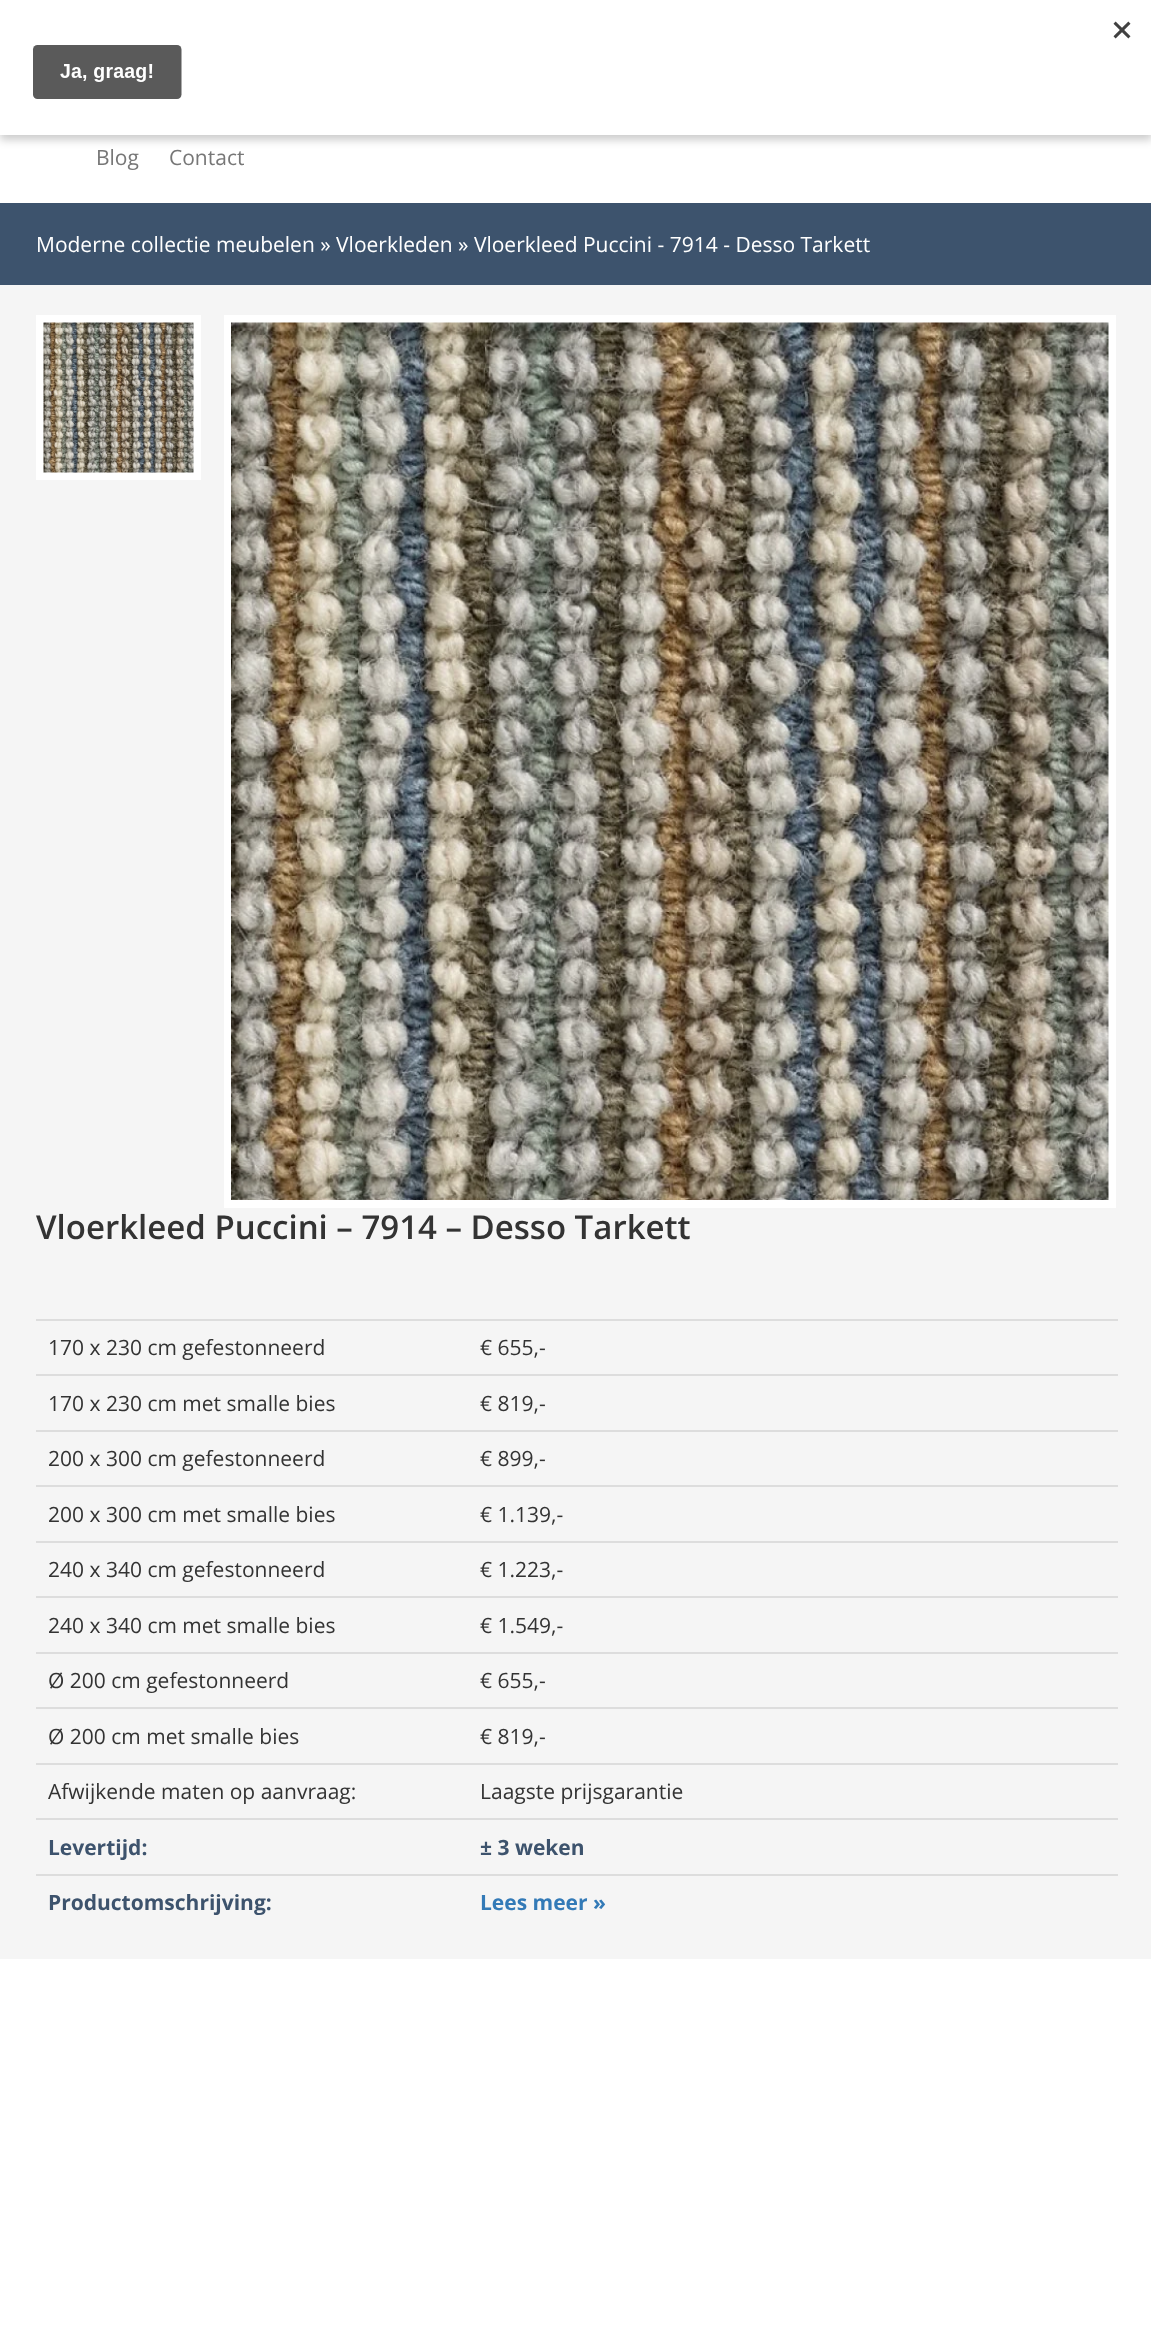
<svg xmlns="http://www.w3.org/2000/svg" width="1151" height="2330">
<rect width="100%" height="100%" fill="#fff"/>
<rect y="5" width="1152" height="135" fill="#00000033" filter="blur(4.5px)"/>
<rect width="1151" height="135" fill="#fff"/>
<image x="32" y="21" width="1099" height="78" href="media/1.png"/>
<text x="96" y="165" style="font-family:Open Sans;font-size:21px;fill:#777">Blog</text>
<text x="169" y="165" style="font-family:Open Sans;font-size:21px;fill:#777">Contact</text>
<rect y="203" width="1151" height="82" fill="#3d536d"/>
<text x="36" y="252" style="font-family:Open Sans;font-size:21px;fill:#fff">Moderne collectie meubelen » Vloerkleden » Vloerkleed Puccini - 7914 - Desso Tarkett</text>
<rect y="285" width="1151" height="1674" fill="#f5f5f5"/>
<rect x="40" y="319" width="157" height="157" fill="none" stroke="#fff" stroke-width="8"/>
<image x="43" y="322" width="151" height="151" href="media/2.png"/>
<rect x="228" y="319" width="884" height="885" fill="none" stroke="#fff" stroke-width="8"/>
<image x="231" y="322" width="878" height="878" href="media/3.png"/>
<text x="36" y="1239" style="font-family:Open Sans;font-size:33px;font-weight:600;fill:#333">Vloerkleed Puccini – 7914 – Desso Tarkett</text>
<text x="48" y="1355" style="font-family:Open Sans;font-size:21px;fill:#333">170 x 230 cm gefestonneerd</text>
<rect x="36" y="1319" width="1082" height="2" fill="#ddd"/>
<text x="480" y="1355" style="font-family:Open Sans;font-size:21px;fill:#333">€ 655,-</text>
<text x="48" y="1411" style="font-family:Open Sans;font-size:21px;fill:#333">170 x 230 cm met smalle bies</text>
<rect x="36" y="1374" width="1082" height="2" fill="#ddd"/>
<text x="480" y="1411" style="font-family:Open Sans;font-size:21px;fill:#333">€ 819,-</text>
<text x="48" y="1466" style="font-family:Open Sans;font-size:21px;fill:#333">200 x 300 cm gefestonneerd</text>
<rect x="36" y="1430" width="1082" height="2" fill="#ddd"/>
<text x="480" y="1466" style="font-family:Open Sans;font-size:21px;fill:#333">€ 899,-</text>
<text x="48" y="1522" style="font-family:Open Sans;font-size:21px;fill:#333">200 x 300 cm met smalle bies</text>
<rect x="36" y="1485" width="1082" height="2" fill="#ddd"/>
<text x="480" y="1522" style="font-family:Open Sans;font-size:21px;fill:#333">€ 1.139,-</text>
<text x="48" y="1577" style="font-family:Open Sans;font-size:21px;fill:#333">240 x 340 cm gefestonneerd</text>
<rect x="36" y="1541" width="1082" height="2" fill="#ddd"/>
<text x="480" y="1577" style="font-family:Open Sans;font-size:21px;fill:#333">€ 1.223,-</text>
<text x="48" y="1633" style="font-family:Open Sans;font-size:21px;fill:#333">240 x 340 cm met smalle bies</text>
<rect x="36" y="1596" width="1082" height="2" fill="#ddd"/>
<text x="480" y="1633" style="font-family:Open Sans;font-size:21px;fill:#333">€ 1.549,-</text>
<text x="48" y="1688" style="font-family:Open Sans;font-size:21px;fill:#333">Ø 200 cm gefestonneerd</text>
<rect x="36" y="1652" width="1082" height="2" fill="#ddd"/>
<text x="480" y="1688" style="font-family:Open Sans;font-size:21px;fill:#333">€ 655,-</text>
<text x="48" y="1744" style="font-family:Open Sans;font-size:21px;fill:#333">Ø 200 cm met smalle bies</text>
<rect x="36" y="1707" width="1082" height="2" fill="#ddd"/>
<text x="480" y="1744" style="font-family:Open Sans;font-size:21px;fill:#333">€ 819,-</text>
<text x="48" y="1799" style="font-family:Open Sans;font-size:21px;fill:#333">Afwijkende maten op aanvraag:</text>
<rect x="36" y="1763" width="1082" height="2" fill="#ddd"/>
<text x="480" y="1799" style="font-family:Open Sans;font-size:21px;fill:#333">Laagste prijsgarantie</text>
<text x="48" y="1855" style="font-family:Open Sans;font-size:21px;font-weight:bold;fill:#3d536d">Levertijd:</text>
<rect x="36" y="1818" width="1082" height="2" fill="#ddd"/>
<text x="480" y="1855" style="font-family:Open Sans;font-size:21px;font-weight:bold;fill:#3d536d">± 3 weken</text>
<text x="48" y="1910" style="font-family:Open Sans;font-size:21px;font-weight:bold;fill:#3d536d">Productomschrijving:</text>
<rect x="36" y="1874" width="1082" height="2" fill="#ddd"/>
<text x="480" y="1910" style="font-family:Open Sans;font-size:21px;font-weight:bold;fill:#337ab7">Lees meer »</text>
</svg>
